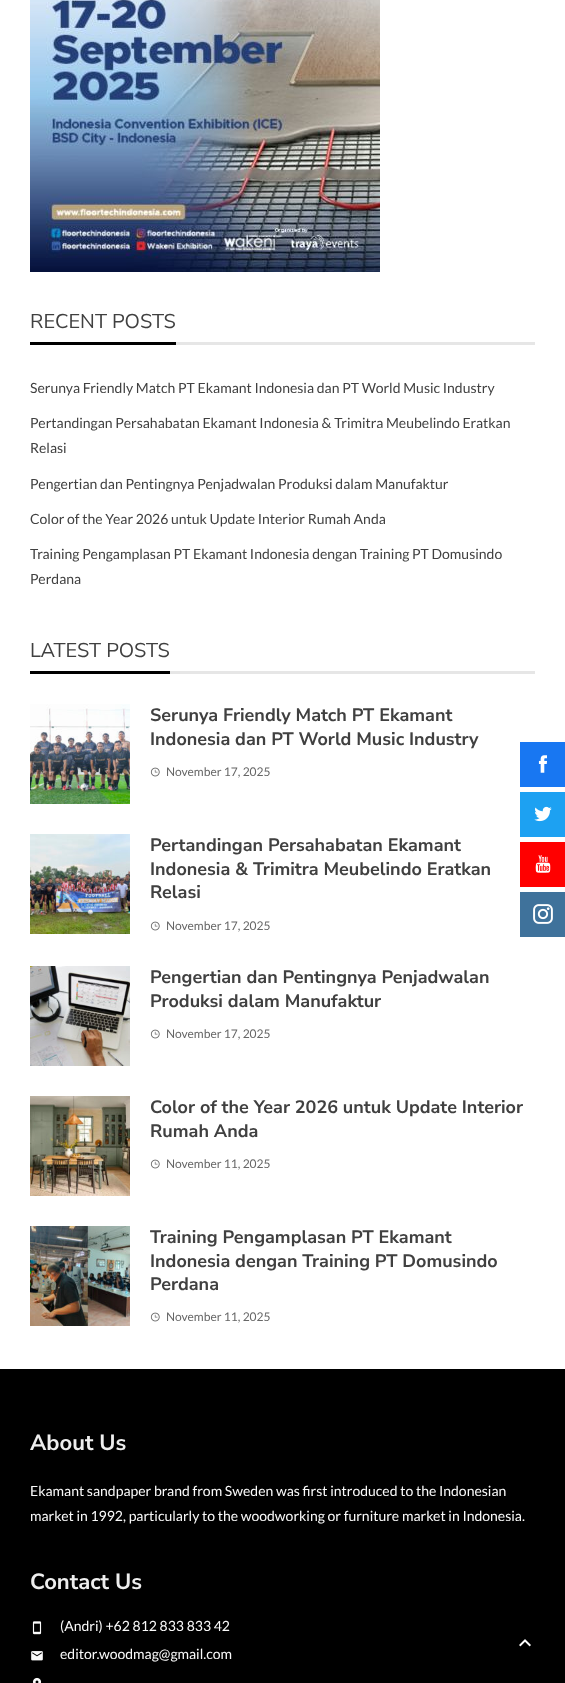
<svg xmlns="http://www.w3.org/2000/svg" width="565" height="1683">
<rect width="100%" height="100%" fill="#fff"/>
<image x="30" y="0" width="350" height="272" href="media/1.png"/>
<rect x="176" y="342" width="359" height="3" fill="#e6e6e6"/>
<text x="30" y="328" style="font-family:Nunito Sans;font-size:20px;fill:#404040">RECENT POSTS</text>
<rect x="30" y="342" width="146" height="3" fill="#000"/>
<text x="30" y="393" style="font-family:Lato;font-size:14px;fill:#404040">Serunya Friendly Match PT Ekamant Indonesia dan PT World Music Industry</text>
<text x="30" y="428" style="font-family:Lato;font-size:14px;fill:#404040">Pertandingan Persahabatan Ekamant Indonesia &amp; Trimitra Meubelindo Eratkan</text>
<text x="30" y="453" style="font-family:Lato;font-size:14px;fill:#404040">Relasi</text>
<text x="30" y="489" style="font-family:Lato;font-size:14px;fill:#404040">Pengertian dan Pentingnya Penjadwalan Produksi dalam Manufaktur</text>
<text x="30" y="524" style="font-family:Lato;font-size:14px;fill:#404040">Color of the Year 2026 untuk Update Interior Rumah Anda</text>
<text x="30" y="559" style="font-family:Lato;font-size:14px;fill:#404040">Training Pengamplasan PT Ekamant Indonesia dengan Training PT Domusindo</text>
<text x="30" y="584" style="font-family:Lato;font-size:14px;fill:#404040">Perdana</text>
<rect x="170" y="671" width="365" height="3" fill="#e6e6e6"/>
<text x="30" y="657" style="font-family:Nunito Sans;font-size:20px;fill:#404040">LATEST POSTS</text>
<rect x="30" y="671" width="140" height="3" fill="#000"/>
<image x="30" y="704" width="100" height="100" href="media/2.png"/>
<text x="150" y="721" style="font-family:Nunito Sans;font-size:18px;font-weight:bold;fill:#404040">Serunya Friendly Match PT Ekamant</text>
<text x="150" y="745" style="font-family:Nunito Sans;font-size:18px;font-weight:bold;fill:#404040">Indonesia dan PT World Music Industry</text>
<image x="150" y="767" width="10" height="10" href="media/3.png"/>
<text x="166" y="776" style="font-family:Lato;font-size:12px;fill:#666">November 17, 2025</text>
<image x="30" y="834" width="100" height="100" href="media/4.png"/>
<text x="150" y="851" style="font-family:Nunito Sans;font-size:18px;font-weight:bold;fill:#404040">Pertandingan Persahabatan Ekamant</text>
<text x="150" y="875" style="font-family:Nunito Sans;font-size:18px;font-weight:bold;fill:#404040">Indonesia &amp; Trimitra Meubelindo Eratkan</text>
<text x="150" y="898" style="font-family:Nunito Sans;font-size:18px;font-weight:bold;fill:#404040">Relasi</text>
<image x="150" y="921" width="10" height="10" href="media/3.png"/>
<text x="166" y="930" style="font-family:Lato;font-size:12px;fill:#666">November 17, 2025</text>
<image x="30" y="966" width="100" height="100" href="media/5.png"/>
<text x="150" y="983" style="font-family:Nunito Sans;font-size:18px;font-weight:bold;fill:#404040">Pengertian dan Pentingnya Penjadwalan</text>
<text x="150" y="1007" style="font-family:Nunito Sans;font-size:18px;font-weight:bold;fill:#404040">Produksi dalam Manufaktur</text>
<image x="150" y="1029" width="10" height="10" href="media/3.png"/>
<text x="166" y="1038" style="font-family:Lato;font-size:12px;fill:#666">November 17, 2025</text>
<image x="30" y="1096" width="100" height="100" href="media/6.png"/>
<text x="150" y="1113" style="font-family:Nunito Sans;font-size:18px;font-weight:bold;fill:#404040">Color of the Year 2026 untuk Update Interior</text>
<text x="150" y="1137" style="font-family:Nunito Sans;font-size:18px;font-weight:bold;fill:#404040">Rumah Anda</text>
<image x="150" y="1159" width="10" height="10" href="media/3.png"/>
<text x="166" y="1168" style="font-family:Lato;font-size:12px;fill:#666">November 11, 2025</text>
<image x="30" y="1226" width="100" height="100" href="media/7.png"/>
<text x="150" y="1243" style="font-family:Nunito Sans;font-size:18px;font-weight:bold;fill:#404040">Training Pengamplasan PT Ekamant</text>
<text x="150" y="1267" style="font-family:Nunito Sans;font-size:18px;font-weight:bold;fill:#404040">Indonesia dengan Training PT Domusindo</text>
<text x="150" y="1290" style="font-family:Nunito Sans;font-size:18px;font-weight:bold;fill:#404040">Perdana</text>
<image x="150" y="1312" width="10" height="10" href="media/3.png"/>
<text x="166" y="1321" style="font-family:Lato;font-size:12px;fill:#666">November 11, 2025</text>
<rect y="1369" width="565" height="314" fill="#000"/>
<text x="30" y="1450" style="font-family:Nunito Sans;font-size:22px;font-weight:bold;fill:#eee">About Us</text>
<text x="30" y="1496" style="font-family:Lato;font-size:14px;fill:#fafafa">Ekamant sandpaper brand from Sweden was first introduced to the Indonesian</text>
<text x="30" y="1521" style="font-family:Lato;font-size:14px;fill:#fafafa">market in 1992, particularly to the woodworking or furniture market in Indonesia.</text>
<text x="30" y="1589" style="font-family:Nunito Sans;font-size:22px;font-weight:bold;fill:#eee">Contact Us</text>
<image x="32" y="1621" width="10" height="14" href="media/8.png"/>
<text x="60" y="1631" style="font-family:Lato;font-size:14px;fill:#fafafa">(Andri) +62 812 833 833 42</text>
<image x="31" y="1651" width="12" height="10" href="media/9.png"/>
<text x="60" y="1659" style="font-family:Lato;font-size:14px;fill:#fafafa">editor.woodmag@gmail.com</text>
<image x="32" y="1677" width="10" height="6" href="media/10.png"/>
<rect x="520" y="742" width="45" height="45" fill="#1877f2"/>
<image x="538" y="755" width="9" height="18" href="media/11.png"/>
<rect x="520" y="792" width="45" height="45" fill="#1da1f2"/>
<image x="534" y="806" width="18" height="16" href="media/12.png"/>
<rect x="520" y="842" width="45" height="45" fill="#f00"/>
<image x="535" y="855" width="16" height="18" href="media/13.png"/>
<rect x="520" y="892" width="45" height="45" fill="#3f729b"/>
<image x="533" y="904" width="20" height="20" href="media/14.png"/>
<image x="519" y="1639" width="12" height="8" href="media/15.png"/>
</svg>
